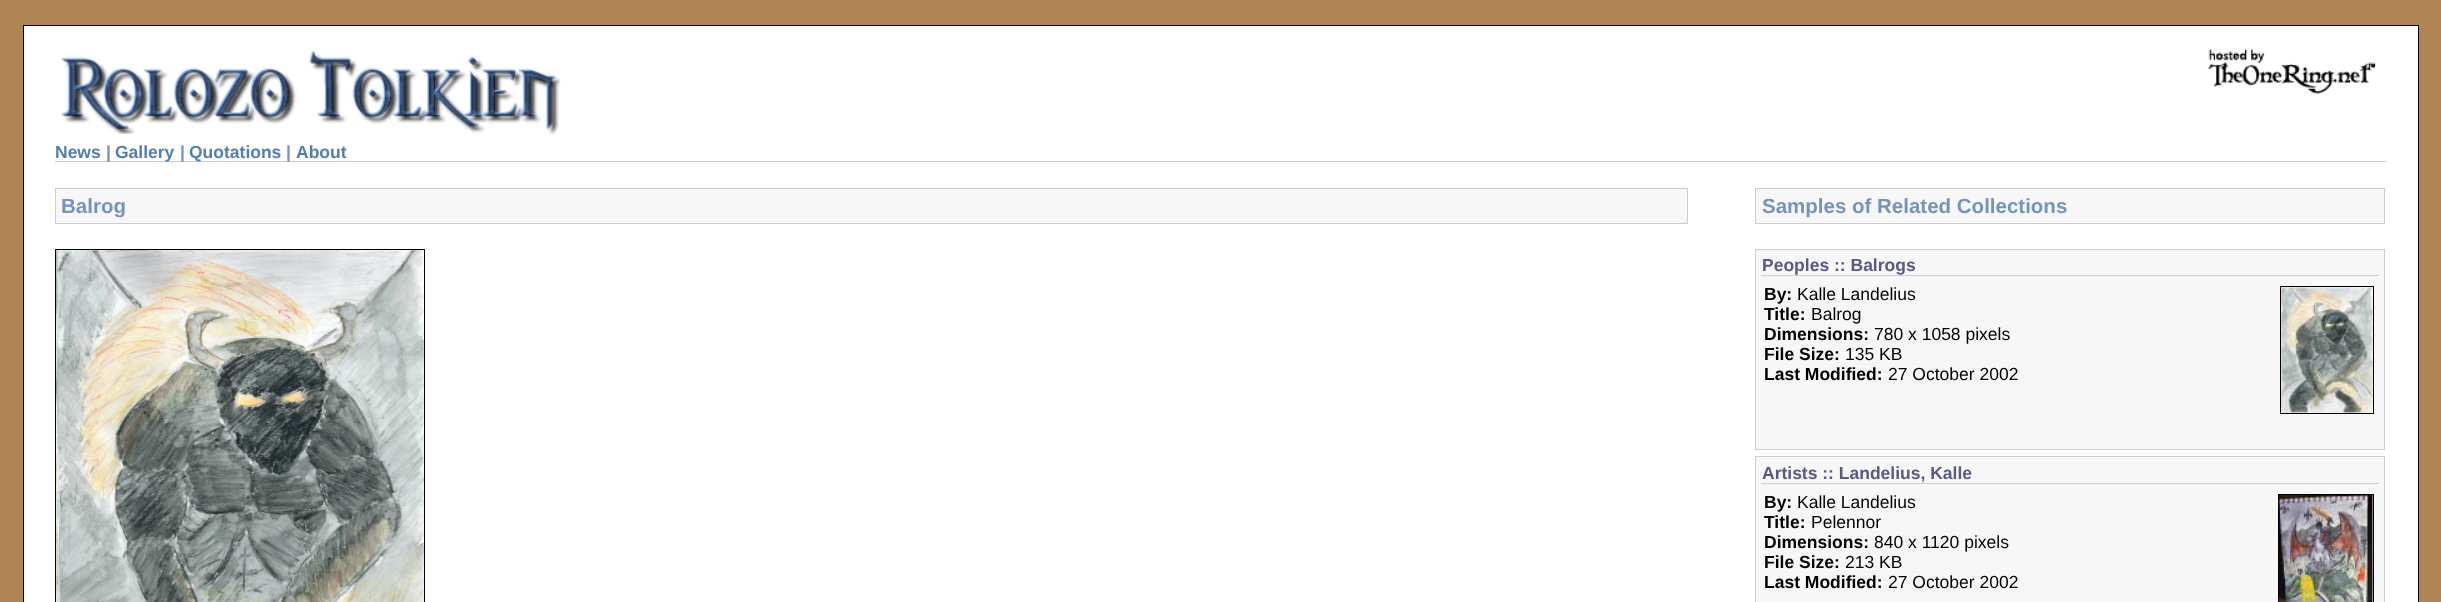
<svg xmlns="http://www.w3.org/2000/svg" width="2441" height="602">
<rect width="100%" height="100%" fill="#b08553"/>
<rect x="23.5" y="25.5" width="2395" height="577" fill="#fff" stroke="#000"/>
<image x="61" y="50" width="500" height="84" href="media/1.png"/>
<image x="2207" y="48" width="169" height="46" href="media/2.png"/>
<rect x="55" y="161" width="2331" height="1" fill="#ccc"/>
<text x="55" y="158" style="font-family:Liberation Sans;font-size:17.5px;font-weight:bold;fill:#537eb0">News</text>
<text x="106" y="158" style="font-family:Liberation Sans;font-size:17.5px;font-weight:bold;fill:#7792bc">|</text>
<text x="115" y="158" style="font-family:Liberation Sans;font-size:17.5px;font-weight:bold;fill:#537eb0">Gallery</text>
<text x="180" y="158" style="font-family:Liberation Sans;font-size:17.5px;font-weight:bold;fill:#7792bc">|</text>
<text x="189" y="158" style="font-family:Liberation Sans;font-size:17.5px;font-weight:bold;fill:#537eb0">Quotations</text>
<text x="286" y="158" style="font-family:Liberation Sans;font-size:17.5px;font-weight:bold;fill:#7792bc">|</text>
<text x="296" y="158" style="font-family:Liberation Sans;font-size:17.5px;font-weight:bold;fill:#537eb0">About</text>
<rect x="55.5" y="188.5" width="1632" height="35" fill="#f7f7f7" stroke="#ccc"/>
<text x="61" y="213" style="font-family:Liberation Sans;font-size:20.5px;font-weight:bold;fill:#7792bc">Balrog</text>
<rect x="55.5" y="249.5" width="369" height="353" fill="none" stroke="#000"/>
<image x="56" y="250" width="368" height="352" href="media/3.png"/>
<rect x="1755.5" y="188.5" width="629" height="35" fill="#f7f7f7" stroke="#ccc"/>
<text x="1762" y="213" style="font-family:Liberation Sans;font-size:20.5px;font-weight:bold;fill:#7792bc">Samples of Related Collections</text>
<rect x="1755.5" y="249.5" width="629" height="200" fill="#f7f7f7" stroke="#ccc"/>
<rect x="1761" y="275" width="618" height="1" fill="#ccc"/>
<text x="1762" y="271" style="font-family:Liberation Sans;font-size:17.5px;font-weight:bold;fill:#595983">Peoples :: Balrogs</text>
<text x="1764" y="300" style="font-family:Liberation Sans;font-size:17.5px;font-weight:bold;fill:#000">By:</text>
<text x="1797" y="300" style="font-family:Liberation Sans;font-size:17.5px;fill:#000">Kalle Landelius</text>
<text x="1764" y="320" style="font-family:Liberation Sans;font-size:17.5px;font-weight:bold;fill:#000">Title:</text>
<text x="1811" y="320" style="font-family:Liberation Sans;font-size:17.5px;fill:#000">Balrog</text>
<text x="1764" y="340" style="font-family:Liberation Sans;font-size:17.5px;font-weight:bold;fill:#000">Dimensions:</text>
<text x="1874" y="340" style="font-family:Liberation Sans;font-size:17.5px;fill:#000">780 x 1058 pixels</text>
<text x="1764" y="360" style="font-family:Liberation Sans;font-size:17.5px;font-weight:bold;fill:#000">File Size:</text>
<text x="1845" y="360" style="font-family:Liberation Sans;font-size:17.5px;fill:#000">135 KB</text>
<text x="1764" y="380" style="font-family:Liberation Sans;font-size:17.5px;font-weight:bold;fill:#000">Last Modified:</text>
<text x="1888" y="380" style="font-family:Liberation Sans;font-size:17.5px;fill:#000">27 October 2002</text>
<rect x="2280.5" y="286.5" width="93" height="127" fill="none" stroke="#000"/>
<image x="2281" y="287" width="92" height="126" href="media/4.png"/>
<rect x="1755.5" y="456.5" width="629" height="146" fill="#f7f7f7" stroke="#ccc"/>
<rect x="1761" y="483" width="618" height="1" fill="#ccc"/>
<text x="1762" y="479" style="font-family:Liberation Sans;font-size:17.5px;font-weight:bold;fill:#595983">Artists :: Landelius, Kalle</text>
<text x="1764" y="508" style="font-family:Liberation Sans;font-size:17.5px;font-weight:bold;fill:#000">By:</text>
<text x="1797" y="508" style="font-family:Liberation Sans;font-size:17.5px;fill:#000">Kalle Landelius</text>
<text x="1764" y="528" style="font-family:Liberation Sans;font-size:17.5px;font-weight:bold;fill:#000">Title:</text>
<text x="1811" y="528" style="font-family:Liberation Sans;font-size:17.5px;fill:#000">Pelennor</text>
<text x="1764" y="548" style="font-family:Liberation Sans;font-size:17.5px;font-weight:bold;fill:#000">Dimensions:</text>
<text x="1874" y="548" style="font-family:Liberation Sans;font-size:17.5px;fill:#000">840 x 1120 pixels</text>
<text x="1764" y="568" style="font-family:Liberation Sans;font-size:17.5px;font-weight:bold;fill:#000">File Size:</text>
<text x="1845" y="568" style="font-family:Liberation Sans;font-size:17.5px;fill:#000">213 KB</text>
<text x="1764" y="588" style="font-family:Liberation Sans;font-size:17.5px;font-weight:bold;fill:#000">Last Modified:</text>
<text x="1888" y="588" style="font-family:Liberation Sans;font-size:17.5px;fill:#000">27 October 2002</text>
<rect x="2278.5" y="494.5" width="95" height="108" fill="none" stroke="#000"/>
<image x="2278" y="495" width="95" height="107" href="media/5.png"/>
</svg>
